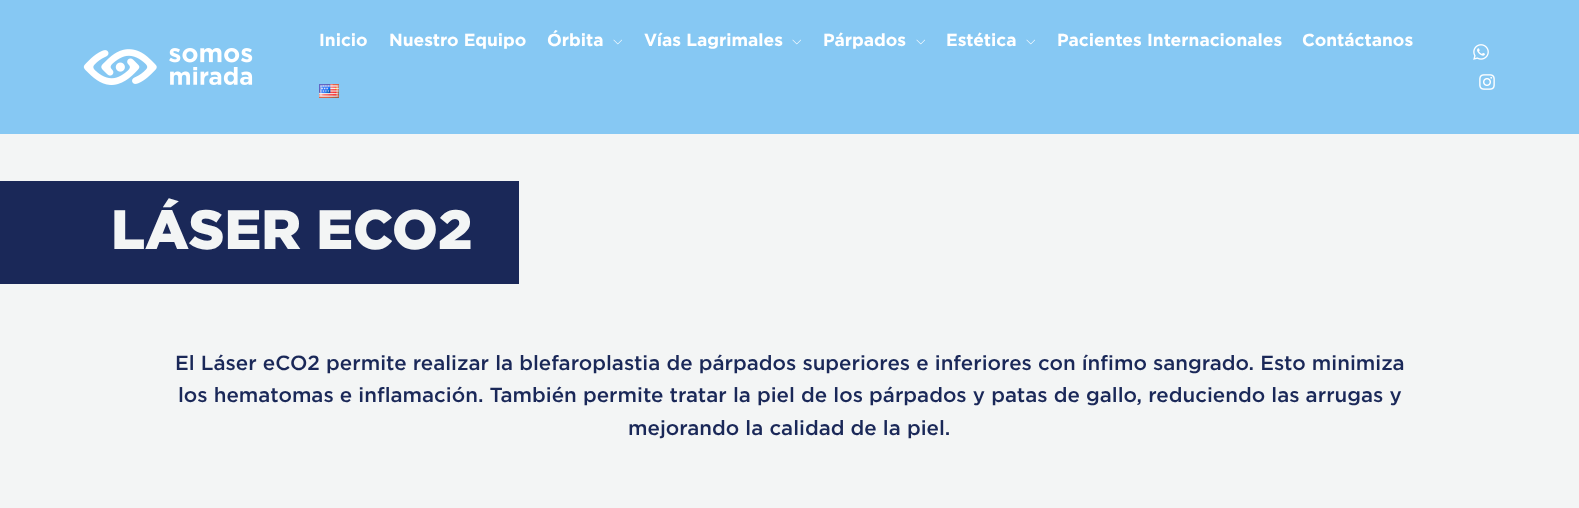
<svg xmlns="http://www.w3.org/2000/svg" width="1579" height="508">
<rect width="100%" height="100%" fill="#f3f5f5"/>
<rect width="1579" height="134" fill="#86c8f3"/>
<text x="319" y="46" style="font-family:Gotham;font-size:17.4px;font-weight:bold;fill:#fff">Inicio</text>
<text x="389" y="46" style="font-family:Gotham;font-size:17.4px;font-weight:bold;fill:#fff">Nuestro Equipo</text>
<text x="547" y="46" style="font-family:Gotham;font-size:17.4px;font-weight:bold;fill:#fff">Órbita</text>
<image x="613" y="39" width="9" height="6" href="media/1.png"/>
<text x="644" y="46" style="font-family:Gotham;font-size:17.4px;font-weight:bold;fill:#fff">Vías Lagrimales</text>
<image x="792" y="39" width="9" height="6" href="media/1.png"/>
<text x="823" y="46" style="font-family:Gotham;font-size:17.4px;font-weight:bold;fill:#fff">Párpados</text>
<image x="916" y="39" width="9" height="6" href="media/1.png"/>
<text x="946" y="46" style="font-family:Gotham;font-size:17.4px;font-weight:bold;fill:#fff">Estética</text>
<image x="1026" y="39" width="9" height="6" href="media/1.png"/>
<text x="1057" y="46" style="font-family:Gotham;font-size:17.4px;font-weight:bold;fill:#fff">Pacientes Internacionales</text>
<text x="1302" y="46" style="font-family:Gotham;font-size:17.4px;font-weight:bold;fill:#fff">Contáctanos</text>
<image x="319" y="84" width="20" height="14" href="media/2.png"/>
<image x="83" y="48" width="170" height="37" href="media/3.png"/>
<image x="1473" y="44" width="16" height="16" href="media/4.png"/>
<image x="1479" y="74" width="16" height="16" href="media/5.png"/>
<rect y="181" width="519" height="103" fill="#1a2858"/>
<text x="111" y="249" style="font-family:Gotham;font-size:55.25px;font-weight:900;fill:#f3f5f5">LÁSER ECO2</text>
<text x="175" y="370" style="font-family:Gotham;font-size:20.53px;font-weight:500;fill:#1a2858">El Láser eCO2 permite realizar la blefaroplastia de párpados superiores e inferiores con ínfimo sangrado. Esto minimiza</text>
<text x="178" y="402" style="font-family:Gotham;font-size:20.53px;font-weight:500;fill:#1a2858">los hematomas e inflamación. También permite tratar la piel de los párpados y patas de gallo, reduciendo las arrugas y</text>
<text x="628" y="435" style="font-family:Gotham;font-size:20.53px;font-weight:500;fill:#1a2858">mejorando la calidad de la piel.</text>
</svg>
